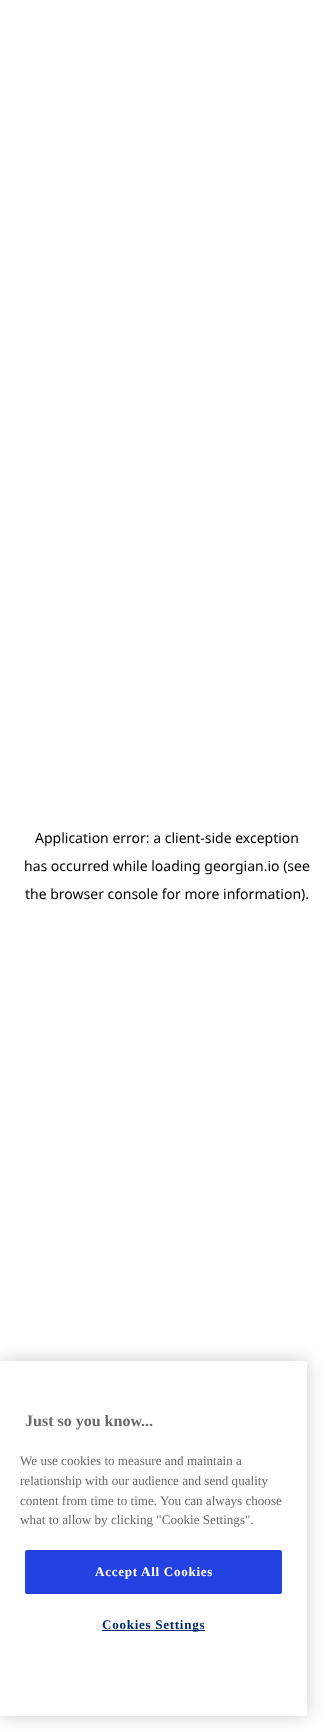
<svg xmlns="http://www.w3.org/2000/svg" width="334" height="1732">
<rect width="100%" height="100%" fill="#fff"/>
<text x="35" y="843" style="font-family:Noto Sans;font-size:14px;fill:#000">Application error: a client-side exception</text>
<text x="24" y="871" style="font-family:Noto Sans;font-size:14px;fill:#000">has occurred while loading georgian.io (see</text>
<text x="25" y="899" style="font-family:Noto Sans;font-size:14px;fill:#000">the browser console for more information).</text>
<rect y="1361" width="307" height="355" rx="2.5" fill="#00000033" filter="blur(9px)"/>
<rect y="1361" width="307" height="355" rx="2.5" fill="#fff"/>
<text x="25" y="1426" style="font-family:Liberation Serif;font-size:16px;font-weight:bold;fill:#696969">Just so you know...</text>
<text x="20" y="1465" style="font-family:Liberation Serif;font-size:13.1px;fill:#696969">We use cookies to measure and maintain a</text>
<text x="20" y="1485" style="font-family:Liberation Serif;font-size:13.1px;fill:#696969">relationship with our audience and send quality</text>
<text x="20" y="1505" style="font-family:Liberation Serif;font-size:13.1px;fill:#696969">content from time to time. You can always choose</text>
<text x="20" y="1524" style="font-family:Liberation Serif;font-size:13.1px;fill:#696969">what to allow by clicking "Cookie Settings".</text>
<rect x="25.5" y="1550.5" width="256" height="43" rx="1.5" fill="#2441e2" stroke="#2441e2"/>
<text x="95" y="1576" style="font-family:Liberation Serif;font-size:13.1px;font-weight:bold;letter-spacing:0.7px;fill:#fff">Accept All Cookies</text>
<rect x="102" y="1630" width="103" height="1" fill="#012970"/>
<text x="102" y="1629" style="font-family:Liberation Serif;font-size:13.1px;font-weight:bold;letter-spacing:0.7px;fill:#012970">Cookies Settings</text>
</svg>
